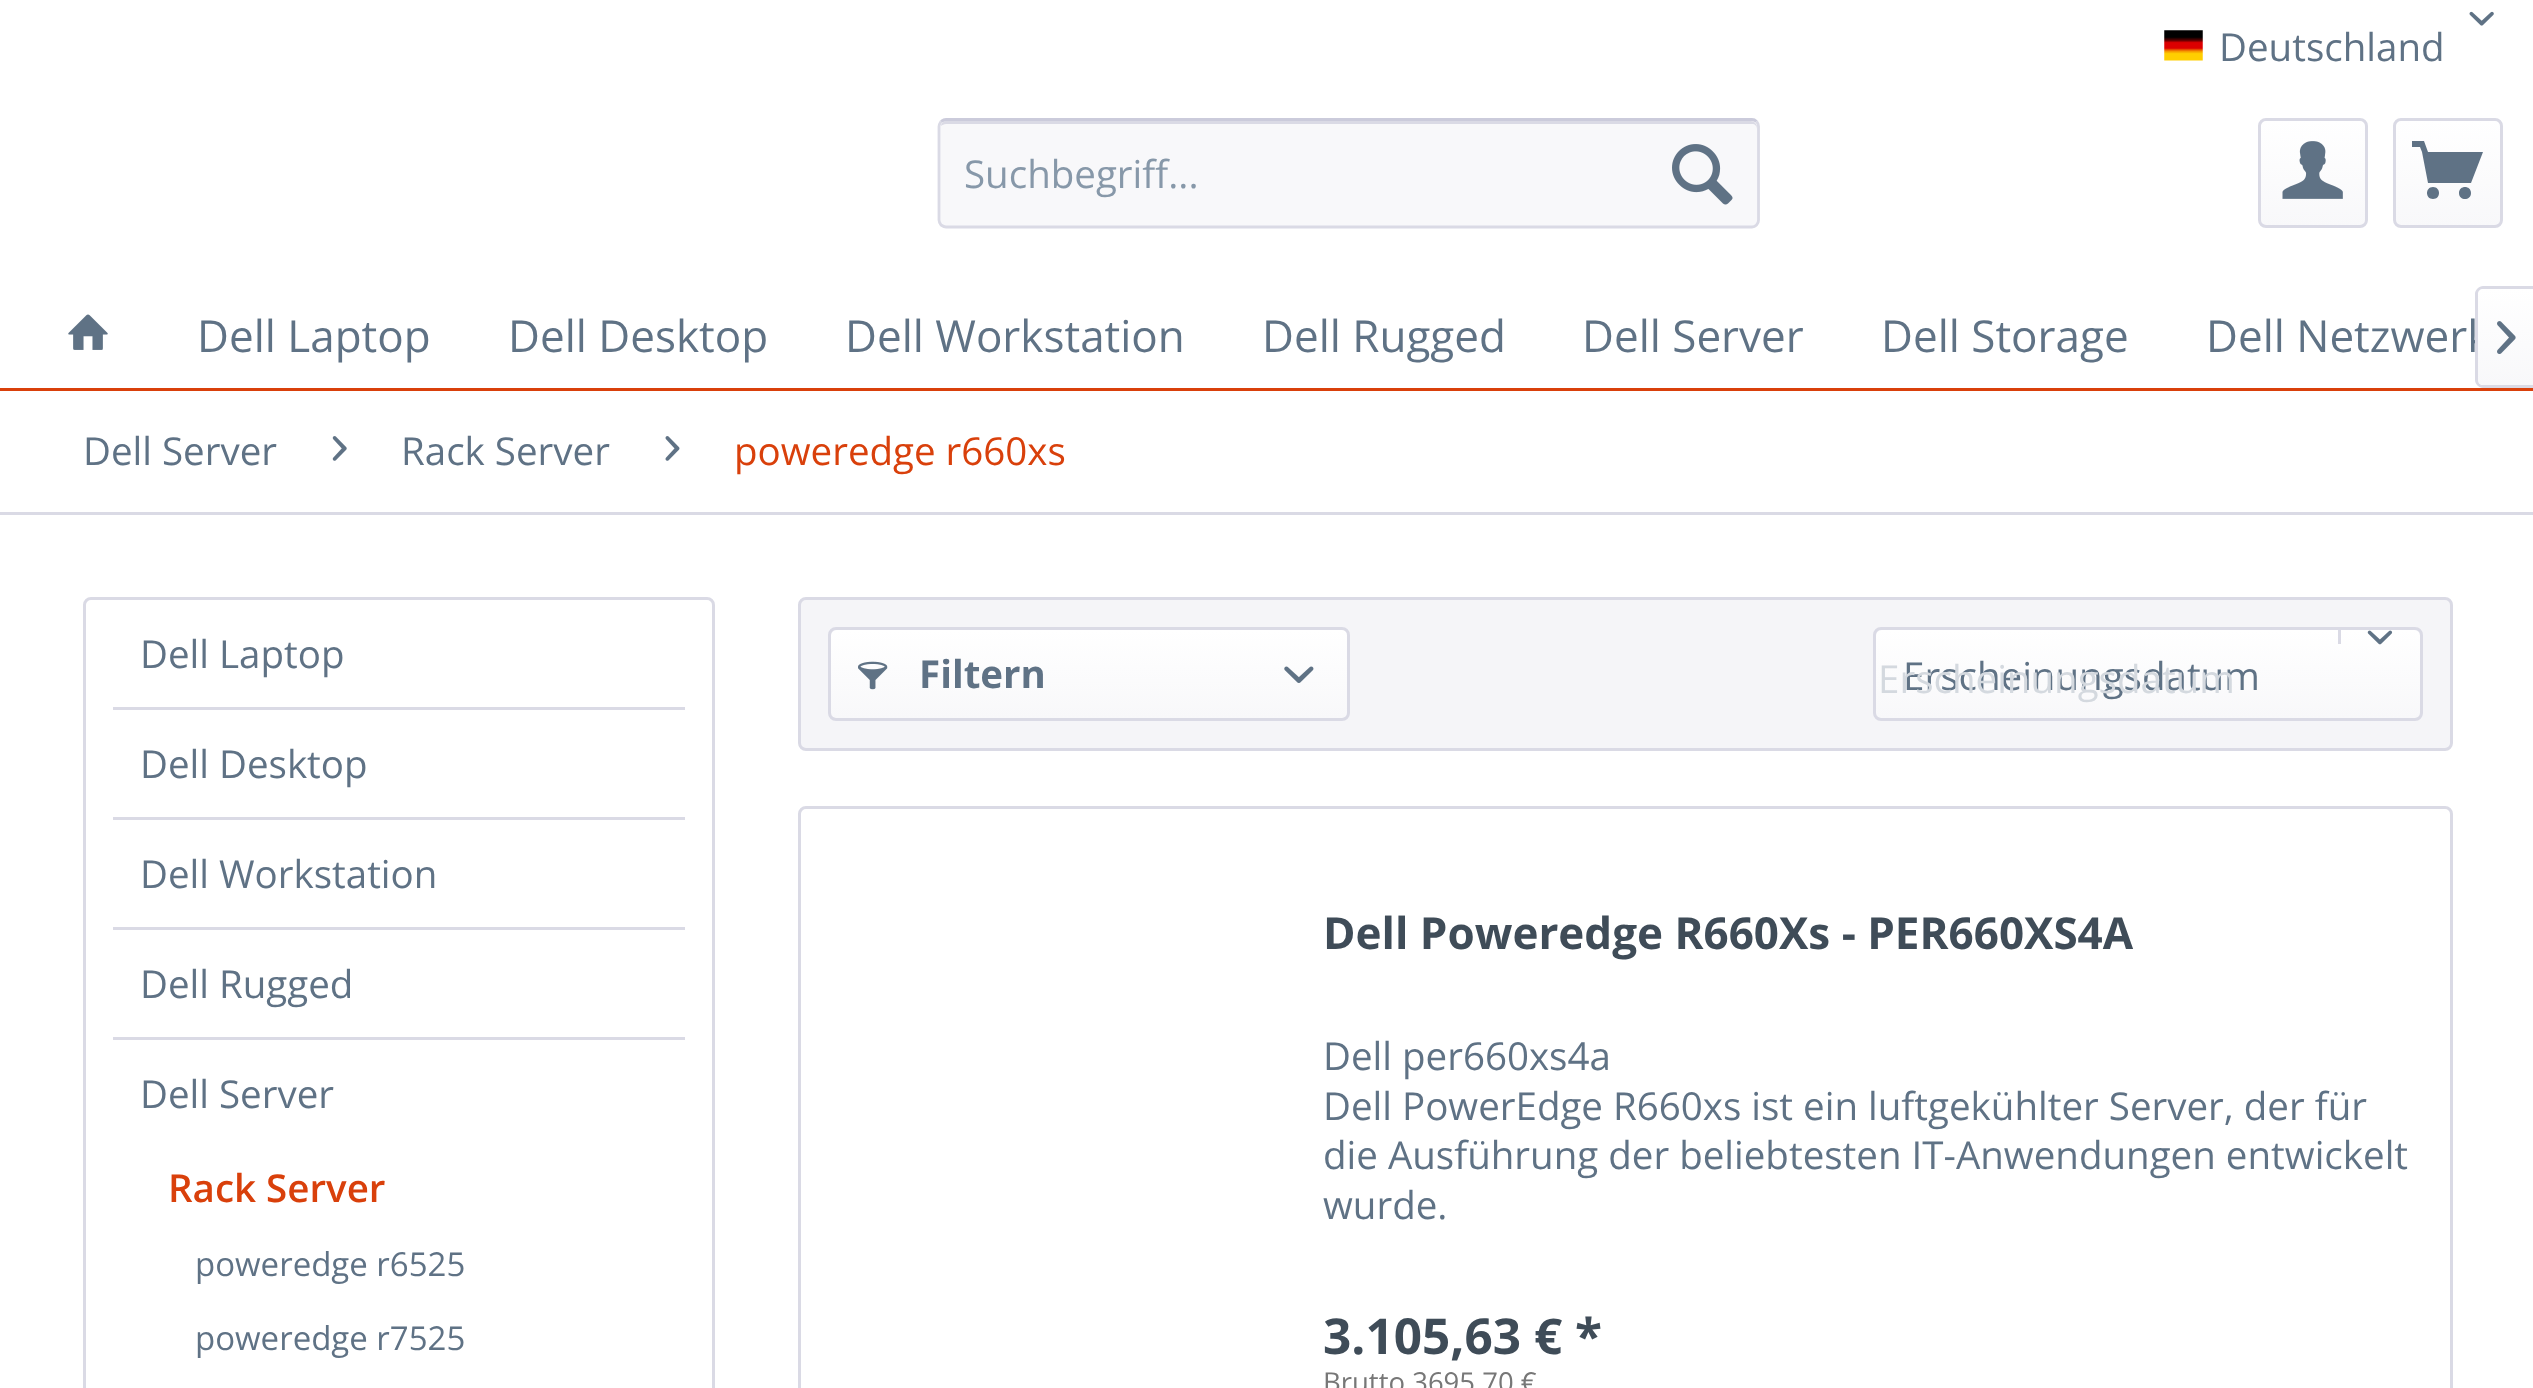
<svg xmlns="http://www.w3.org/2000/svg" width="2533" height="1388">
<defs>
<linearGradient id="g1" gradientUnits="userSpaceOnUse" x1="2313" y1="121" x2="2313" y2="226"><stop offset="0" stop-color="#fff"/><stop offset="1" stop-color="#f8f8fa"/></linearGradient>
<linearGradient id="g2" gradientUnits="userSpaceOnUse" x1="2448" y1="121" x2="2448" y2="226"><stop offset="0" stop-color="#fff"/><stop offset="1" stop-color="#f8f8fa"/></linearGradient>
<linearGradient id="g3" gradientUnits="userSpaceOnUse" x1="2507" y1="289" x2="2507" y2="385"><stop offset="0" stop-color="#fff"/><stop offset="1" stop-color="#f8f8fa"/></linearGradient>
<linearGradient id="g4" gradientUnits="userSpaceOnUse" x1="1089" y1="630" x2="1089" y2="718"><stop offset="0" stop-color="#fff"/><stop offset="1" stop-color="#f8f8fa"/></linearGradient>
<linearGradient id="g5" gradientUnits="userSpaceOnUse" x1="2148" y1="630" x2="2148" y2="718"><stop offset="0" stop-color="#fff"/><stop offset="1" stop-color="#f8f8fa"/></linearGradient>
</defs>
<rect width="100%" height="100%" fill="#fff"/>
<image x="2164" y="30" width="39" height="31" href="media/1.png"/>
<image x="2469" y="11" width="25" height="15" href="media/2.png"/>
<text x="2219" y="61" style="font-family:Open Sans;font-size:38.5px;fill:#5f7285">Deutschland</text>
<rect x="938" y="118" width="822" height="110" rx="8" fill="#f8f8fa"/>
<path d="M946 124h806c3 0 5 2 5 5v-2c0-3-3-6-6-6h-804c-3 0-6 2-6 5c1-1 3-2 5-2z" fill="#dadae5"/>
<path d="M941 121.5c1.5-1 3-2 5-2h806c1.5 0 3.5 1 4.5 2" fill="none" stroke="#cbcbdb" stroke-width="2.8"/>
<path d="M1756.5 121.5c1.5 1.5 2 3 2 5v93.5c0 2-.5 3.5-2 5c-1 1-3 2-4.5 2h-806c-2 0-3.5-1-5-2c-1-1.5-2-3-2-5v-93.5c0-2 1-3.5 2-5" fill="none" stroke="#dadae5" stroke-width="2.8"/>
<text x="964" y="188" style="font-family:Open Sans;font-size:38.5px;fill:#8798a9">Suchbegriff...</text>
<image x="1672" y="144" width="61" height="61" href="media/3.png"/>
<rect x="2261" y="121" width="104" height="105" rx="6" fill="url(#g1)"/>
<rect x="2259.5" y="119.5" width="107" height="107" rx="6.5" fill="none" stroke="#dadae5" stroke-width="3"/>
<image x="2282" y="141" width="61" height="58" href="media/4.png"/>
<rect x="2395" y="121" width="105" height="105" rx="6" fill="url(#g2)"/>
<rect x="2394.5" y="119.5" width="107" height="107" rx="6.5" fill="none" stroke="#dadae5" stroke-width="3"/>
<path d="M2428 183h43l12-31h-55l-4-11h-12v6h8l2 5zm5 4c-8 0-8 12 0 12c8 0 8-12 0-12zm38 6c0 8-12 8-12 0c0-8 12-8 12 0z" fill="#5f7285"/>
<rect y="388" width="2533" height="3" fill="#d9400b"/>
<image x="68" y="314" width="40" height="36" href="media/5.png"/>
<text x="197" y="352" style="font-family:Open Sans;font-size:44px;fill:#5f7285">Dell Laptop</text>
<text x="508" y="352" style="font-family:Open Sans;font-size:44px;fill:#5f7285">Dell Desktop</text>
<text x="845" y="352" style="font-family:Open Sans;font-size:44px;fill:#5f7285">Dell Workstation</text>
<text x="1262" y="352" style="font-family:Open Sans;font-size:44px;fill:#5f7285">Dell Rugged</text>
<text x="1582" y="352" style="font-family:Open Sans;font-size:44px;fill:#5f7285">Dell Server</text>
<text x="1881" y="352" style="font-family:Open Sans;font-size:44px;fill:#5f7285">Dell Storage</text>
<text x="2206" y="352" style="font-family:Open Sans;font-size:44px;fill:#5f7285">Dell Netzwerk</text>
<path d="M2484 289h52v96h-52c-3.5 0-6-2.5-6-6v-84c0-3.5 2.5-6 6-6z" fill="url(#g3)"/>
<path d="M2483 286h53v102h-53c-4 0-8-4-8-8v-86c0-4 4-8 8-8zm0 3h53v96h-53c-3 0-5-2-5-5v-86c0-3 2-5 5-5z" fill="#dadae5" fill-rule="evenodd"/>
<image x="2497" y="321" width="19" height="33" href="media/6.png"/>
<rect y="512" width="2533" height="3" fill="#dadae5"/>
<text x="83" y="465" style="font-family:Open Sans;font-size:38.5px;fill:#5f7285">Dell Server</text>
<image x="332" y="436" width="15" height="25" href="media/7.png"/>
<text x="401" y="465" style="font-family:Open Sans;font-size:38.5px;fill:#5f7285">Rack Server</text>
<image x="665" y="436" width="15" height="25" href="media/8.png"/>
<text x="734" y="465" style="font-family:Open Sans;font-size:38.5px;fill:#d9400b">poweredge r660xs</text>
<rect x="84.5" y="598.5" width="629" height="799" rx="6.5" fill="none" stroke="#dadae5" stroke-width="3"/>
<rect x="113" y="707" width="572" height="3" fill="#dadae5"/>
<text x="140" y="668" style="font-family:Open Sans;font-size:38.5px;fill:#5f7285">Dell Laptop</text>
<rect x="113" y="817" width="572" height="3" fill="#dadae5"/>
<text x="140" y="778" style="font-family:Open Sans;font-size:38.5px;fill:#5f7285">Dell Desktop</text>
<rect x="113" y="927" width="572" height="3" fill="#dadae5"/>
<text x="140" y="888" style="font-family:Open Sans;font-size:38.5px;fill:#5f7285">Dell Workstation</text>
<rect x="113" y="1037" width="572" height="3" fill="#dadae5"/>
<text x="140" y="998" style="font-family:Open Sans;font-size:38.5px;fill:#5f7285">Dell Rugged</text>
<text x="140" y="1108" style="font-family:Open Sans;font-size:38.5px;fill:#5f7285">Dell Server</text>
<text x="168" y="1202" style="font-family:Open Sans;font-size:38.5px;font-weight:600;fill:#d9400b">Rack Server</text>
<text x="195" y="1276" style="font-family:Open Sans;font-size:33px;fill:#5f7285">poweredge r6525</text>
<text x="195" y="1350" style="font-family:Open Sans;font-size:33px;fill:#5f7285">poweredge r7525</text>
<rect x="799.5" y="598.5" width="1652" height="151" rx="6.5" fill="#f5f5f8" stroke="#dadae5" stroke-width="3"/>
<rect x="831" y="630" width="517" height="88" rx="6" fill="url(#g4)"/>
<rect x="829.5" y="628.5" width="519" height="91" rx="6.5" fill="none" stroke="#dadae5" stroke-width="3"/>
<image x="858" y="661" width="30" height="29" href="media/9.png"/>
<text x="919" y="688" style="font-family:Open Sans;font-size:38.5px;font-weight:bold;fill:#5f7285">Filtern</text>
<image x="1284" y="666" width="30" height="17" href="media/10.png"/>
<rect x="1876" y="630" width="544" height="88" rx="6" fill="url(#g5)"/>
<rect x="1874.5" y="628.5" width="547" height="91" rx="6.5" fill="none" stroke="#dadae5" stroke-width="3"/>
<rect x="2338" y="630" width="3" height="14" fill="#dadae5"/>
<image x="2367" y="630" width="26" height="15" href="media/11.png"/>
<text x="1903" y="690" style="font-family:Open Sans;font-size:38.5px;fill:#5f7285">Erscheinungsdatum</text>
<text x="1878" y="693" style="font-family:Open Sans;font-size:38.5px;fill:#d4d9df">Erscheinungsdatum</text>
<rect x="799.5" y="807.5" width="1652" height="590" rx="6.5" fill="none" stroke="#dadae5" stroke-width="3"/>
<text x="1323" y="949" style="font-family:Open Sans;font-size:44px;font-weight:bold;fill:#3f4c58">Dell Poweredge R660Xs - PER660XS4A</text>
<text x="1323" y="1070" style="font-family:Open Sans;font-size:38.5px;fill:#5f7285">Dell per660xs4a</text>
<text x="1323" y="1120" style="font-family:Open Sans;font-size:38.5px;fill:#5f7285">Dell PowerEdge R660xs ist ein luftgekühlter Server, der für</text>
<text x="1323" y="1169" style="font-family:Open Sans;font-size:38.5px;fill:#5f7285">die Ausführung der beliebtesten IT-Anwendungen entwickelt</text>
<text x="1323" y="1219" style="font-family:Open Sans;font-size:38.5px;fill:#5f7285">wurde.</text>
<text x="1323" y="1354" style="font-family:Open Sans;font-size:49.5px;font-weight:bold;fill:#3f4c58">3.105,63 € *</text>
<text x="1323" y="1392" style="font-family:Open Sans;font-size:27.5px;fill:#777">Brutto 3695.70 €</text>
</svg>
